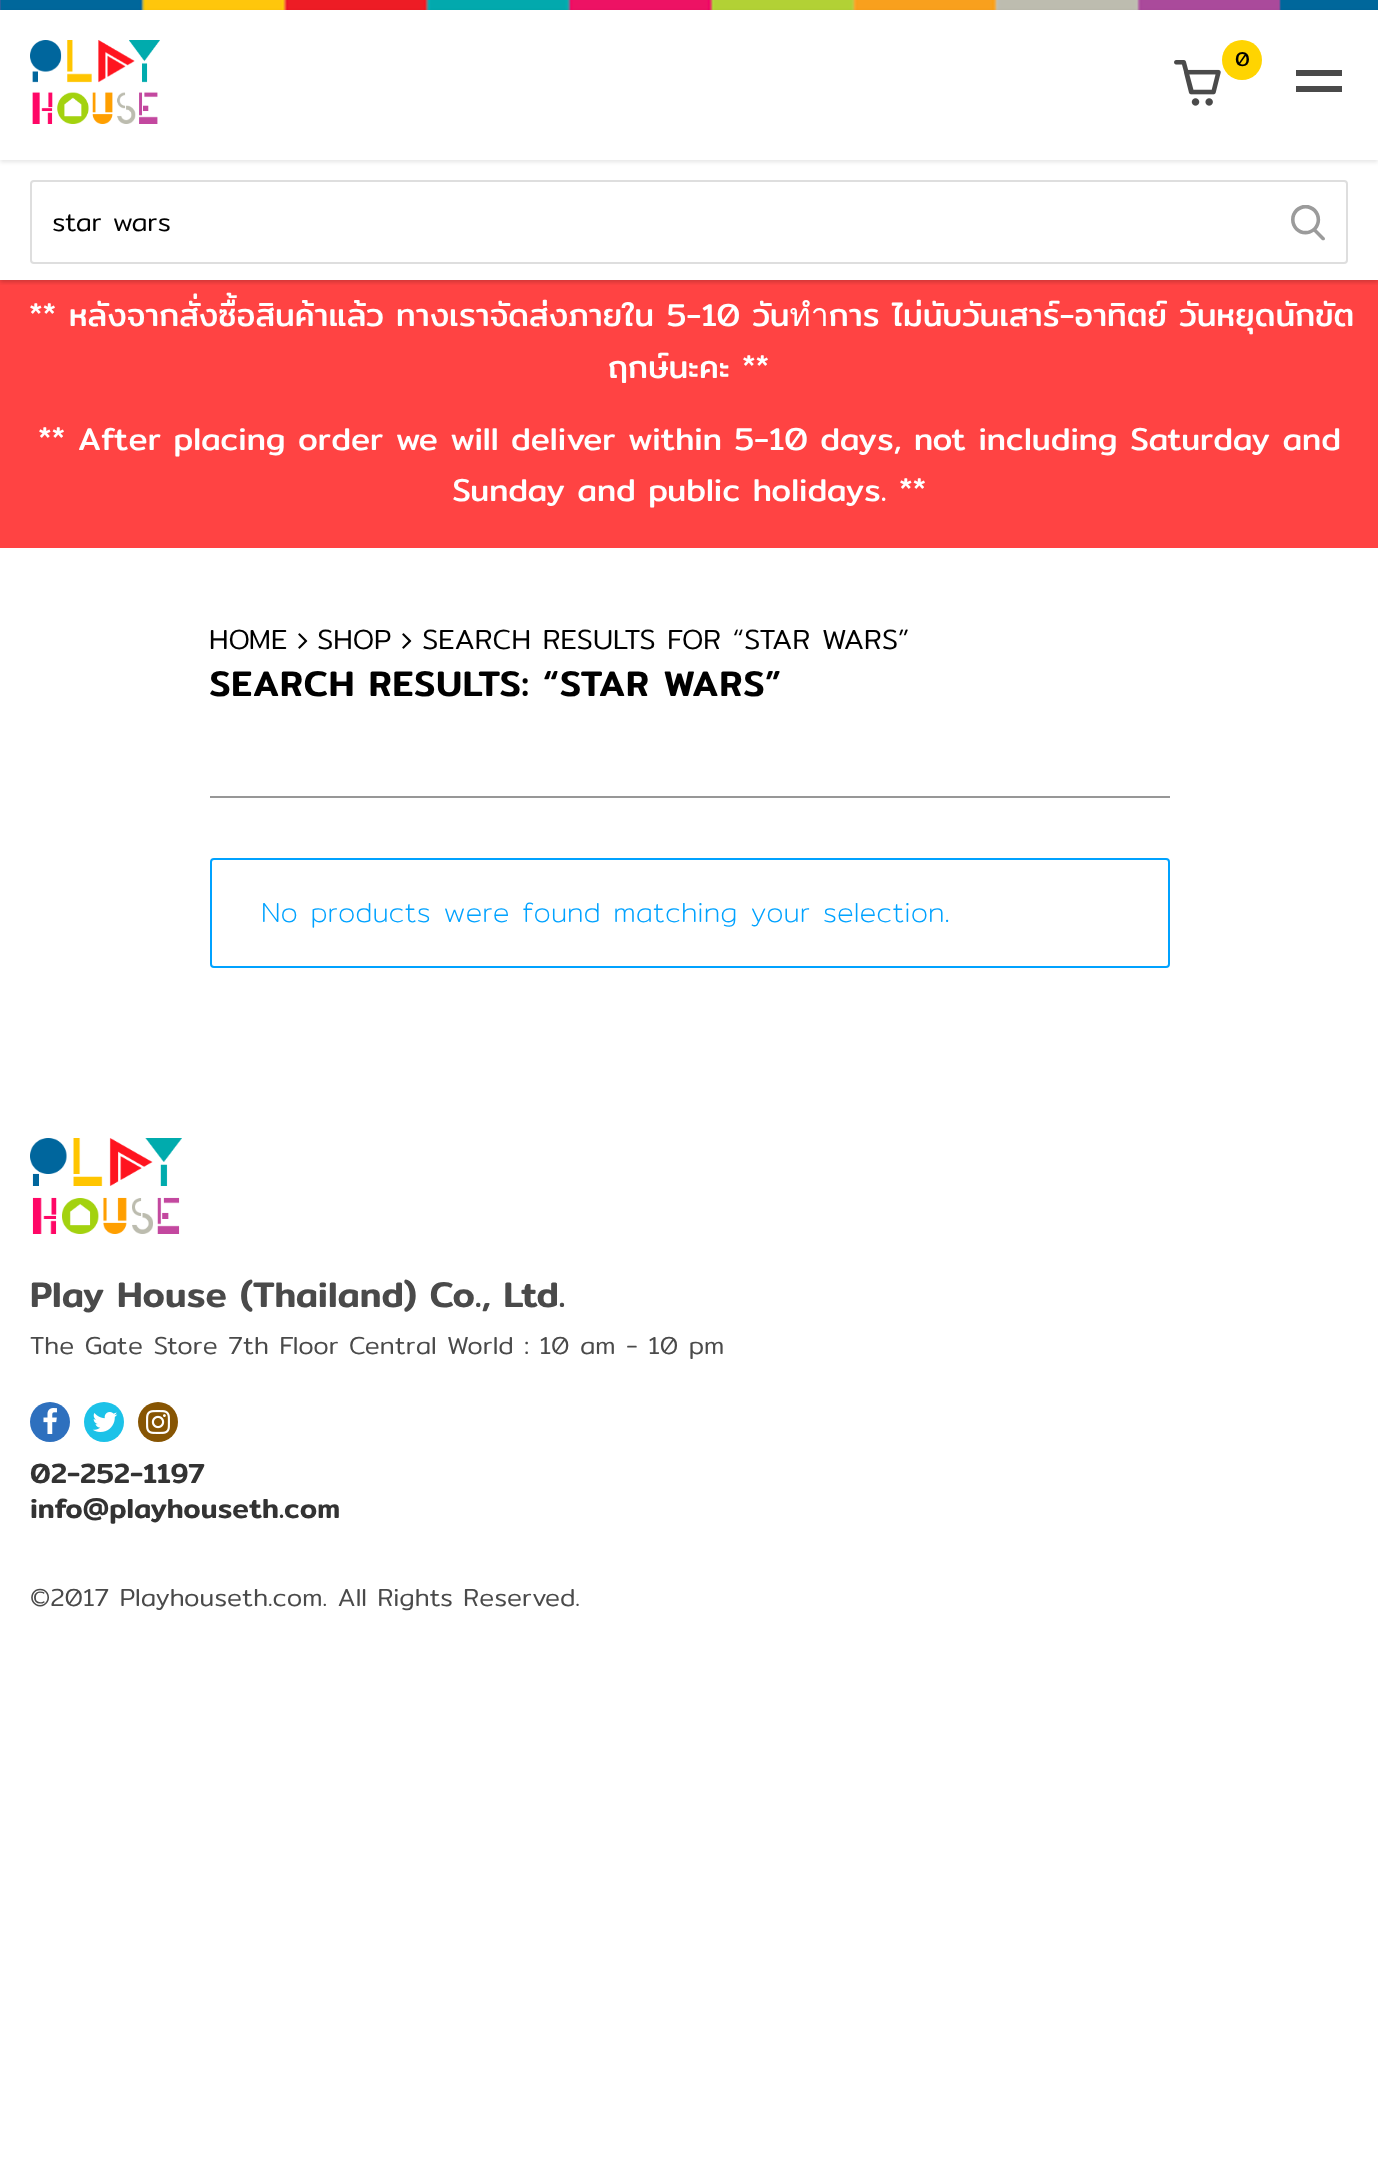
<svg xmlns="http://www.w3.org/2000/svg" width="1378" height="2175">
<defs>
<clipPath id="clip1"><rect x="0" y="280" width="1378" height="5"/></clipPath>
</defs>
<rect width="100%" height="100%" fill="#fff"/>
<image x="0" y="0" width="1378" height="10" href="media/1.png"/>
<rect y="12" width="1378" height="150" fill="#0000001a" filter="blur(2px)"/>
<rect y="280" width="1378" height="268" fill="#ff4343"/>
<g clip-path="url(#clip1)">
<rect y="162" width="1378" height="120" fill="#00000033" filter="blur(2px)"/>
</g>
<rect y="10" width="1378" height="150" fill="#fff"/>
<image x="30" y="40" width="130" height="84" href="media/2.png"/>
<image x="1174" y="60" width="47" height="46" href="media/3.png"/>
<circle cx="1242" cy="60" r="20" fill="#ffd401"/>
<text x="1235" y="66" style="font-family:Mitr;font-size:20px;fill:#000">0</text>
<rect x="31" y="181" width="1316" height="82" rx="3" fill="none" stroke="#dedede" stroke-width="2"/>
<text x="52" y="231" style="font-family:Mitr;font-size:26px;font-weight:300;fill:#000">star wars</text>
<image x="1291" y="205" width="34" height="36" href="media/4.png"/>
<rect x="1296" y="70" width="46" height="6" fill="#4a4a4a"/>
<rect x="1296" y="86" width="46" height="6" fill="#4a4a4a"/>
<text x="29" y="326" style="font-family:Mitr;font-size:32px;fill:#fff">** หลังจากสั่งซื้อสินค้าแล้ว ทางเราจัดส่งภายใน 5-10 วันทำการ ไม่นับวันเสาร์-อาทิตย์ วันหยุดนักขัต</text>
<text x="608" y="378" style="font-family:Mitr;font-size:32px;fill:#fff">ฤกษ์นะคะ **</text>
<text x="38" y="450" style="font-family:Mitr;font-size:32px;fill:#fff">** After placing order we will deliver within 5-10 days, not including Saturday and</text>
<text x="452" y="501" style="font-family:Mitr;font-size:32px;fill:#fff">Sunday and public holidays. **</text>
<text x="209" y="649" style="font-family:Mitr;font-size:28px;font-weight:300;fill:#000">HOME</text>
<image x="298" y="633" width="10" height="16" href="media/5.png"/>
<text x="317" y="649" style="font-family:Mitr;font-size:28px;font-weight:300;fill:#000">SHOP</text>
<image x="402" y="633" width="10" height="16" href="media/5.png"/>
<text x="422" y="649" style="font-family:Mitr;font-size:28px;font-weight:300;fill:#000">SEARCH RESULTS FOR “STAR WARS”</text>
<rect x="210" y="796" width="960" height="2" fill="#979797"/>
<text x="209" y="696" style="font-family:Mitr;font-size:36px;font-weight:500;letter-spacing:0.75px;fill:#000">SEARCH RESULTS: “STAR WARS”</text>
<rect x="211" y="859" width="958" height="108" rx="3" fill="none" stroke="#00a2ff" stroke-width="2"/>
<text x="261" y="922" style="font-family:Mitr;font-size:28px;font-weight:200;fill:#00a2ff">No products were found matching your selection.</text>
<image x="30" y="1138" width="152" height="96" href="media/6.png"/>
<text x="30" y="1307" style="font-family:Mitr;font-size:36px;font-weight:500;fill:#4a4a4a">Play House (Thailand) Co., Ltd.</text>
<text x="30" y="1354" style="font-family:Mitr;font-size:25px;font-weight:300;fill:#4a4a4a">The Gate Store 7th Floor Central World : 10 am - 10 pm</text>
<circle cx="50" cy="1422" r="20" fill="#2e70be"/>
<image x="43" y="1408" width="14" height="26" href="media/7.png"/>
<circle cx="104" cy="1422" r="20" fill="#1cc2e8"/>
<image x="92" y="1412" width="26" height="20" href="media/8.png"/>
<circle cx="158" cy="1422" r="20" fill="#875503"/>
<image x="146" y="1410" width="24" height="24" href="media/9.png"/>
<text x="30" y="1483" style="font-family:Mitr;font-size:28px;font-weight:500;fill:#333">02-252-1197</text>
<text x="30" y="1518" style="font-family:Mitr;font-size:28px;font-weight:500;fill:#333">info@playhouseth.com</text>
<text x="30" y="1606" style="font-family:Mitr;font-size:25px;font-weight:300;fill:#4a4a4a">©2017 Playhouseth.com. All Rights Reserved.</text>
</svg>
